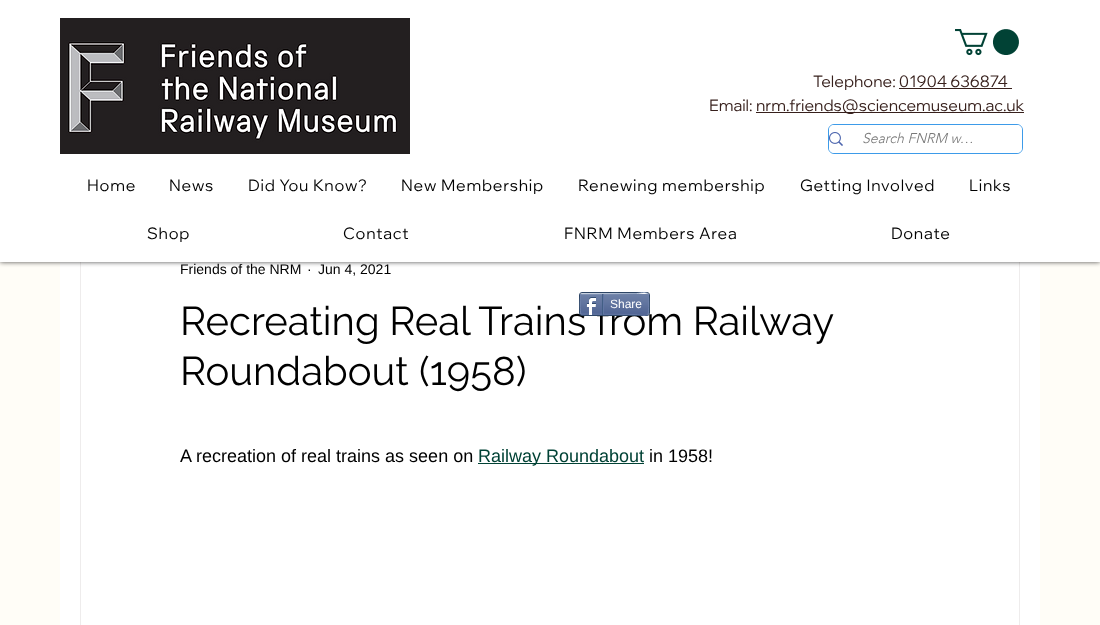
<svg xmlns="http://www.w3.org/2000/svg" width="1100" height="625">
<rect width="100%" height="100%" fill="#fffdf7"/>
<rect x="60" y="262" width="980" height="363" fill="#fff"/>
<rect x="80.5" y="208.5" width="939" height="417" fill="none" stroke="#eeecec"/>
<rect width="1100" height="262" fill="#000000b3" filter="blur(2.5px)"/>
<rect width="1100" height="262" fill="#fff"/>
<image x="60" y="18" width="350" height="136" href="media/1.png"/>
<image x="955" y="29" width="64" height="27" href="media/2.png"/>
<text x="813" y="87" style="font-family:Wix Madefor Display;font-size:16px;fill:#37201c">Telephone: 01904 636874</text>
<rect x="899" y="88" width="113" height="1" fill="#37201c"/>
<text x="709" y="111" style="font-family:Wix Madefor Display;font-size:16px;fill:#37201c">Email:</text>
<rect x="756" y="112" width="268" height="1" fill="#37201c"/>
<text x="756" y="111" style="font-family:Wix Madefor Display;font-size:16px;fill:#37201c">nrm.friends@sciencemuseum.ac.uk</text>
<rect x="828.5" y="124.5" width="194" height="29" rx="5.5" fill="none" stroke="#3d9be9"/>
<rect x="829" y="125" width="193" height="28" rx="5" fill="#fff"/>
<image x="829" y="132" width="14" height="14" href="media/3.png"/>
<text x="862" y="143" style="font-family:'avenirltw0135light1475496';font-size:14px;font-weight:300;font-style:italic;fill:#787878">Search FNRM w…</text>
<text x="87" y="191" style="font-family:Wix Madefor Display;font-size:16px;letter-spacing:0.75px;fill:#000">Home</text>
<text x="169" y="191" style="font-family:Wix Madefor Display;font-size:16px;letter-spacing:0.75px;fill:#000">News</text>
<text x="248" y="191" style="font-family:Wix Madefor Display;font-size:16px;letter-spacing:0.75px;fill:#000">Did You Know?</text>
<text x="401" y="191" style="font-family:Wix Madefor Display;font-size:16px;letter-spacing:0.75px;fill:#000">New Membership</text>
<text x="578" y="191" style="font-family:Wix Madefor Display;font-size:16px;letter-spacing:0.75px;fill:#000">Renewing membership</text>
<text x="800" y="191" style="font-family:Wix Madefor Display;font-size:16px;letter-spacing:0.75px;fill:#000">Getting Involved</text>
<text x="969" y="191" style="font-family:Wix Madefor Display;font-size:16px;letter-spacing:0.75px;fill:#000">Links</text>
<text x="147" y="239" style="font-family:Wix Madefor Display;font-size:16px;letter-spacing:0.75px;fill:#000">Shop</text>
<text x="343" y="239" style="font-family:Wix Madefor Display;font-size:16px;letter-spacing:0.75px;fill:#000">Contact</text>
<text x="564" y="239" style="font-family:Wix Madefor Display;font-size:16px;letter-spacing:0.75px;fill:#000">FNRM Members Area</text>
<text x="891" y="239" style="font-family:Wix Madefor Display;font-size:16px;letter-spacing:0.75px;fill:#000">Donate</text>
<text x="180" y="274" style="font-family:Liberation Sans;font-size:14px;fill:#000">Friends of the NRM</text>
<text x="307" y="274" style="font-family:Liberation Sans;font-size:14px;fill:#000">·</text>
<text x="318" y="274" style="font-family:Liberation Sans;font-size:14px;fill:#000">Jun 4, 2021</text>
<text x="180" y="335" word-spacing="-0.5" style="font-family:Raleway;font-size:40px;fill:#000">Recreating Real Trains from Railway</text>
<text x="180" y="385" style="font-family:Raleway;font-size:40px;fill:#000">Roundabout (1958)</text>
<text x="180" y="462" style="font-family:Liberation Sans;font-size:18px;fill:#000">A recreation of real trains as seen on</text>
<rect x="478" y="463" width="166" height="1" fill="#014235"/>
<text x="478" y="462" style="font-family:Liberation Sans;font-size:18px;fill:#014235">Railway Roundabout</text>
<text x="649" y="462" style="font-family:Liberation Sans;font-size:18px;fill:#000">in 1958!</text>
<rect x="579.5" y="292.5" width="70" height="23" rx="2.5" fill="none" stroke="#2d4565"/>
<image x="580" y="294" width="69" height="21" href="media/4.png"/>
<path d="M581 294l55-.5c4 0 9-2.5 12 .5" fill="none" stroke="#9aabc6"/>
<path d="M648 294c1 .5 1 19.5 0 20" fill="none" stroke="#6f83ad"/>
<path d="M648 314c-3 3-8 .5-12 .5l-55-.5" fill="none" stroke="#6176a3"/>
<path d="M581 314c-1-.5-1-19.5 0-20" fill="none" stroke="#6f83ad"/>
<image x="586" y="297" width="10" height="18" href="media/5.png"/>
<rect x="602" y="294" width="1" height="21" fill="#425e85"/>
<text x="610" y="308" style="font-family:Liberation Sans;font-size:12px;fill:#fff">Share</text>
<rect x="603" y="294" width="1" height="20" fill="#6176a3"/>
</svg>
